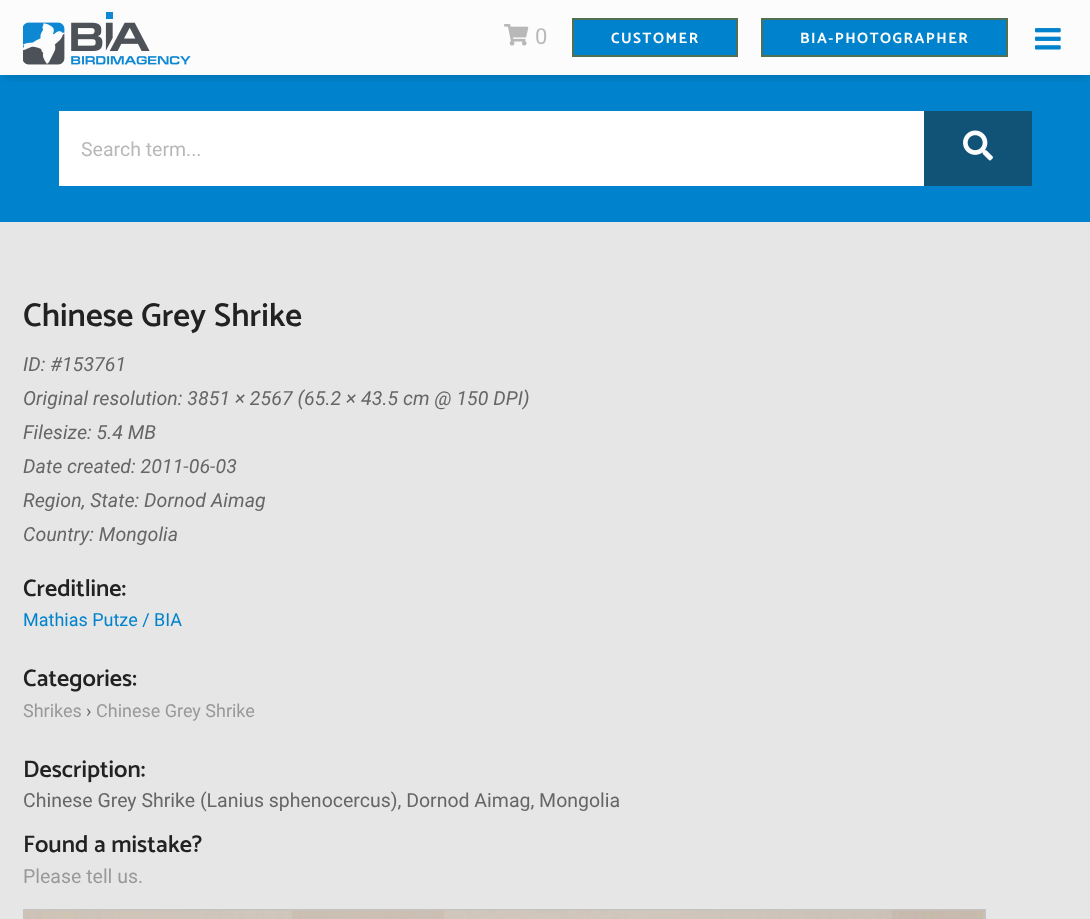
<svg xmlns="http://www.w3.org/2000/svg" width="1090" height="919">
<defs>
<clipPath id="clip1"><rect x="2" y="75" width="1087" height="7"/></clipPath>
</defs>
<rect width="100%" height="100%" fill="#fcfcfc"/>
<rect y="75" width="1090" height="147" fill="#0083cc"/>
<g clip-path="url(#clip1)">
<rect x="5" y="12" width="1081" height="66" fill="#0000001f" filter="blur(4px)"/>
</g>
<image x="23" y="12" width="168" height="53" href="media/1.png"/>
<image x="504" y="24" width="25" height="22" href="media/2.png"/>
<text x="535" y="44" style="font-family:Roboto;font-size:22px;letter-spacing:1.5px;fill:#b8b8b8">0</text>
<rect x="573" y="19" width="164" height="37" fill="#0083cc" stroke="#516f51" stroke-width="2"/>
<text x="611" y="43" style="font-family:Catamaran;font-size:15px;font-weight:bold;letter-spacing:1.5px;fill:#fcfcfc">CUSTOMER</text>
<rect x="762" y="19" width="245" height="37" fill="#0083cc" stroke="#516f51" stroke-width="2"/>
<text x="800" y="43" style="font-family:Catamaran;font-size:15px;font-weight:bold;letter-spacing:1.5px;fill:#fcfcfc">BIA-PHOTOGRAPHER</text>
<image x="1035" y="28" width="26" height="22" href="media/3.png"/>
<rect x="924" y="111" width="108" height="75" fill="#115277"/>
<rect x="59" y="111" width="865" height="75" fill="#fff"/>
<text x="81" y="156" style="font-family:Roboto;font-size:19.5px;fill:#b8b8b8">Search term...</text>
<image x="963" y="130" width="30" height="31" href="media/4.png"/>
<rect y="222" width="1090" height="697" fill="#e6e6e6"/>
<text x="23" y="326" style="font-family:Catamaran;font-size:33px;font-weight:600;fill:#222">Chinese Grey Shrike</text>
<text x="23" y="371" style="font-family:Roboto;font-size:19.5px;font-style:italic;fill:#666">ID: #153761</text>
<text x="23" y="405" style="font-family:Roboto;font-size:19.5px;font-style:italic;fill:#666">Original resolution: 3851 × 2567 (65.2 × 43.5 cm @ 150 DPI)</text>
<text x="23" y="439" style="font-family:Roboto;font-size:19.5px;font-style:italic;fill:#666">Filesize: 5.4 MB</text>
<text x="23" y="473" style="font-family:Roboto;font-size:19.5px;font-style:italic;fill:#666">Date created: 2011-06-03</text>
<text x="23" y="507" style="font-family:Roboto;font-size:19.5px;font-style:italic;fill:#666">Region, State: Dornod Aimag</text>
<text x="23" y="541" style="font-family:Roboto;font-size:19.5px;font-style:italic;fill:#666">Country: Mongolia</text>
<text x="23" y="596" style="font-family:Catamaran;font-size:24px;font-weight:600;fill:#222">Creditline:</text>
<text x="23" y="626" style="font-family:Roboto;font-size:18px;fill:#0083cc">Mathias Putze / BIA</text>
<text x="23" y="686" style="font-family:Catamaran;font-size:24px;font-weight:600;fill:#222">Categories:</text>
<text x="23" y="717" style="font-family:Roboto;font-size:18px;fill:#999">Shrikes</text>
<text x="86" y="717" style="font-family:Roboto;font-size:18px;fill:#666">›</text>
<text x="96" y="717" style="font-family:Roboto;font-size:18px;fill:#999">Chinese Grey Shrike</text>
<text x="23" y="777" style="font-family:Catamaran;font-size:24px;font-weight:600;fill:#222">Description:</text>
<text x="23" y="807" style="font-family:Roboto;font-size:19.5px;fill:#666">Chinese Grey Shrike (Lanius sphenocercus), Dornod Aimag, Mongolia</text>
<text x="23" y="852" style="font-family:Catamaran;font-size:24px;font-weight:600;fill:#222">Found a mistake?</text>
<text x="23" y="883" style="font-family:Roboto;font-size:19.5px;fill:#999">Please tell us.</text>
<rect x="24" y="910" width="961" height="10" fill="none" stroke="#c3c3c3" stroke-width="2"/>
<image x="24" y="910" width="961" height="9" href="media/5.png"/>
</svg>
